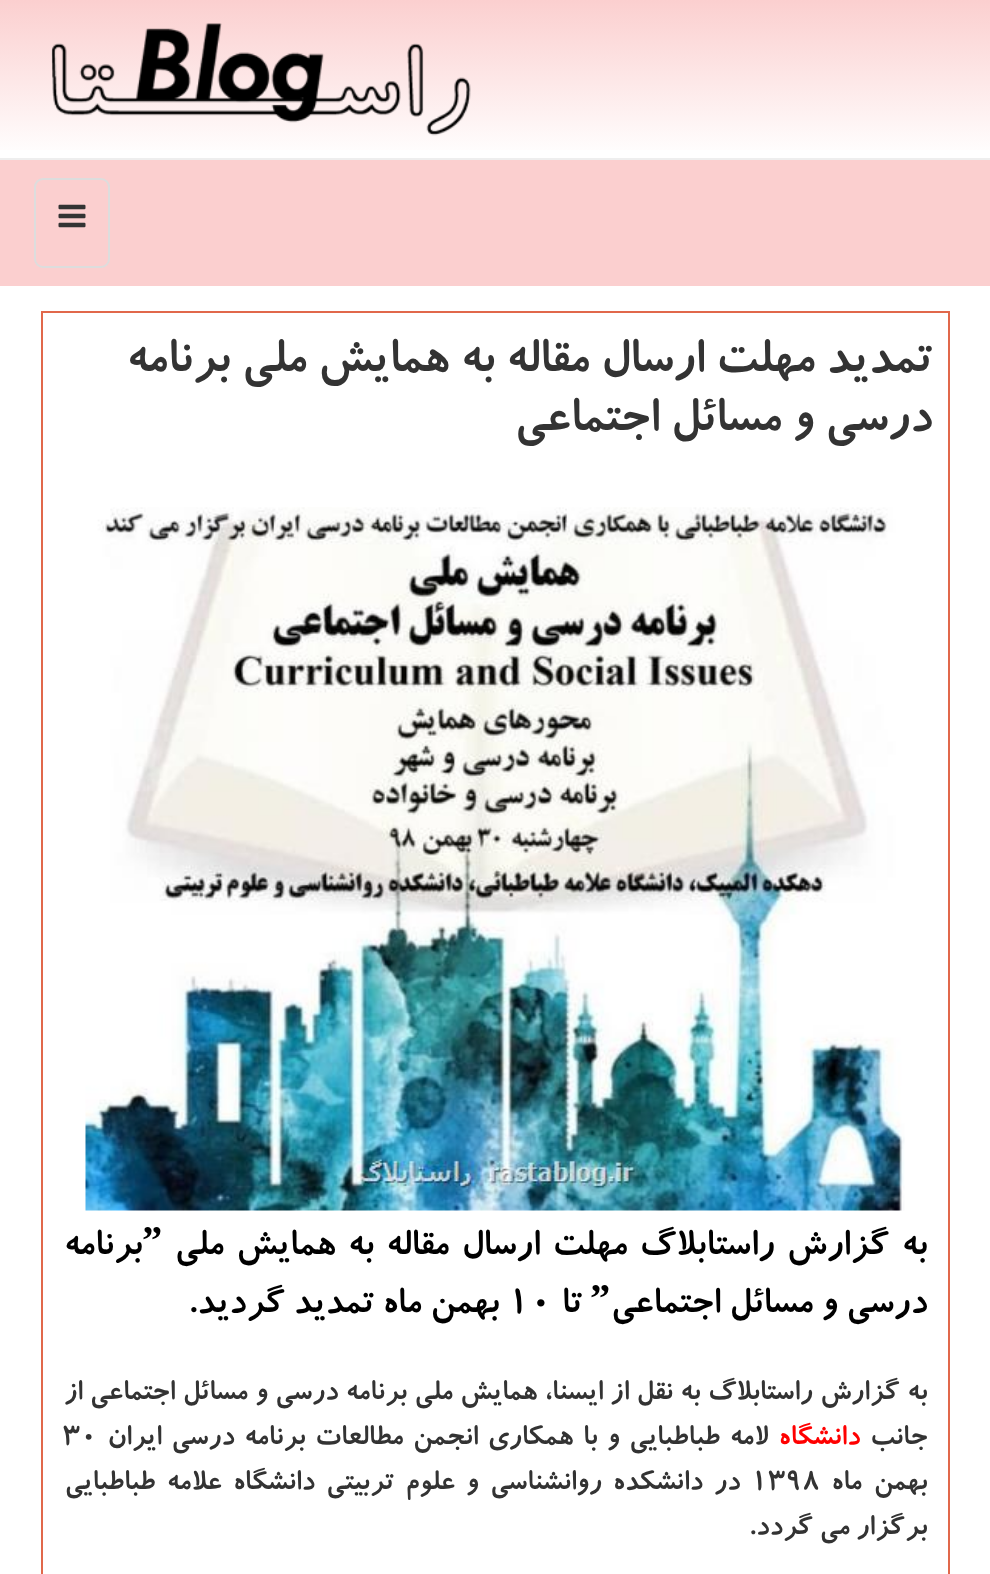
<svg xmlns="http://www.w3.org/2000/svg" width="990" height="1574">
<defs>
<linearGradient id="g1" gradientUnits="userSpaceOnUse" x1="495" y1="0" x2="495" y2="158"><stop offset="0" stop-color="#fbcfcf"/><stop offset="1" stop-color="#fff"/></linearGradient>
</defs>
<rect width="100%" height="100%" fill="#fff"/>
<rect width="990" height="150" fill="url(#g1)"/>
<rect y="158" width="990" height="2" fill="#eee"/>
<image x="51" y="23" width="420" height="113" href="media/1.png"/>
<rect y="160" width="990" height="126" fill="#fbcfcf"/>
<rect x="35" y="179" width="74" height="88" rx="8" fill="none" stroke="#ddd" stroke-width="2"/>
<image x="58" y="204" width="28" height="24" href="media/2.png"/>
<rect x="42" y="312" width="907" height="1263" fill="none" stroke="#e1684b" stroke-width="2"/>
<text x="932" y="371" style="font-family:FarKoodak;font-size:53.5px;font-weight:bold;direction:rtl;fill:#333">تمدید مهلت ارسال مقاله به همایش ملی برنامه</text>
<text x="932" y="430" style="font-family:FarKoodak;font-size:53.5px;font-weight:bold;direction:rtl;fill:#333">درسی و مسائل اجتماعی</text>
<image x="85" y="507" width="820" height="704" href="media/3.png"/>
<text x="927" y="1254" word-spacing="3.75" style="font-family:FarKoodak;font-size:40.5px;font-weight:bold;direction:rtl;fill:#000">به گزارش راستابلاگ مهلت ارسال مقاله به همایش ملی</text>
<text x="142" y="1254" style="font-family:Liberation Serif;font-size:40.5px;font-weight:bold;fill:#000">ˮ</text>
<text x="142" y="1254" style="font-family:FarKoodak;font-size:40.5px;font-weight:bold;direction:rtl;fill:#000">برنامه</text>
<text x="927" y="1312" style="font-family:FarKoodak;font-size:40.5px;font-weight:bold;direction:rtl;fill:#000">درسی و مسائل اجتماعی</text>
<text x="590" y="1312" style="font-family:Liberation Serif;font-size:40.5px;font-weight:bold;fill:#000">ˮ</text>
<text x="582" y="1312" style="font-family:FarKoodak;font-size:40.5px;font-weight:bold;direction:rtl;fill:#000">تا</text>
<text x="508" y="1312" style="font-family:FarKoodak;font-size:40.5px;font-weight:bold;fill:#000">۱۰</text>
<text x="499" y="1312" style="font-family:FarKoodak;font-size:40.5px;font-weight:bold;direction:rtl;fill:#000">بهمن ماه تمدید گردید.</text>
<text x="927" y="1399" word-spacing="0.75" style="font-family:FarKoodak;font-size:31.5px;font-weight:bold;direction:rtl;fill:#333">به گزارش راستابلاگ به نقل از ایسنا،</text>
<text x="537" y="1399" word-spacing="0.75" style="font-family:FarKoodak;font-size:31.5px;font-weight:bold;direction:rtl;fill:#333">همایش ملی برنامه درسی و مسائل اجتماعی از</text>
<text x="927" y="1444" style="font-family:FarKoodak;font-size:31.5px;font-weight:bold;direction:rtl;fill:#333">جانب</text>
<text x="860" y="1444" style="font-family:FarKoodak;font-size:31.5px;font-weight:bold;direction:rtl;fill:#f00">دانشگاه‌</text>
<text x="768" y="1444" word-spacing="3" style="font-family:FarKoodak;font-size:31.5px;font-weight:bold;direction:rtl;fill:#333">لامه طباطبایی و با همكاری انجمن مطالعات برنامه درسی ایران</text>
<text x="63" y="1444" style="font-family:FarKoodak;font-size:31.5px;font-weight:bold;fill:#333">۳۰</text>
<text x="927" y="1489" word-spacing="5" style="font-family:FarKoodak;font-size:31.5px;font-weight:bold;direction:rtl;fill:#333">بهمن ماه</text>
<text x="751" y="1489" style="font-family:FarKoodak;font-size:31.5px;font-weight:bold;fill:#333">۱۳۹۸</text>
<text x="740" y="1489" word-spacing="4.75" style="font-family:FarKoodak;font-size:31.5px;font-weight:bold;direction:rtl;fill:#333">در دانشكده روانشناسی و علوم تربیتی دانشگاه علامه طباطبایی</text>
<text x="927" y="1534" style="font-family:FarKoodak;font-size:31.5px;font-weight:bold;direction:rtl;fill:#333">برگزار می گردد.</text>
</svg>
